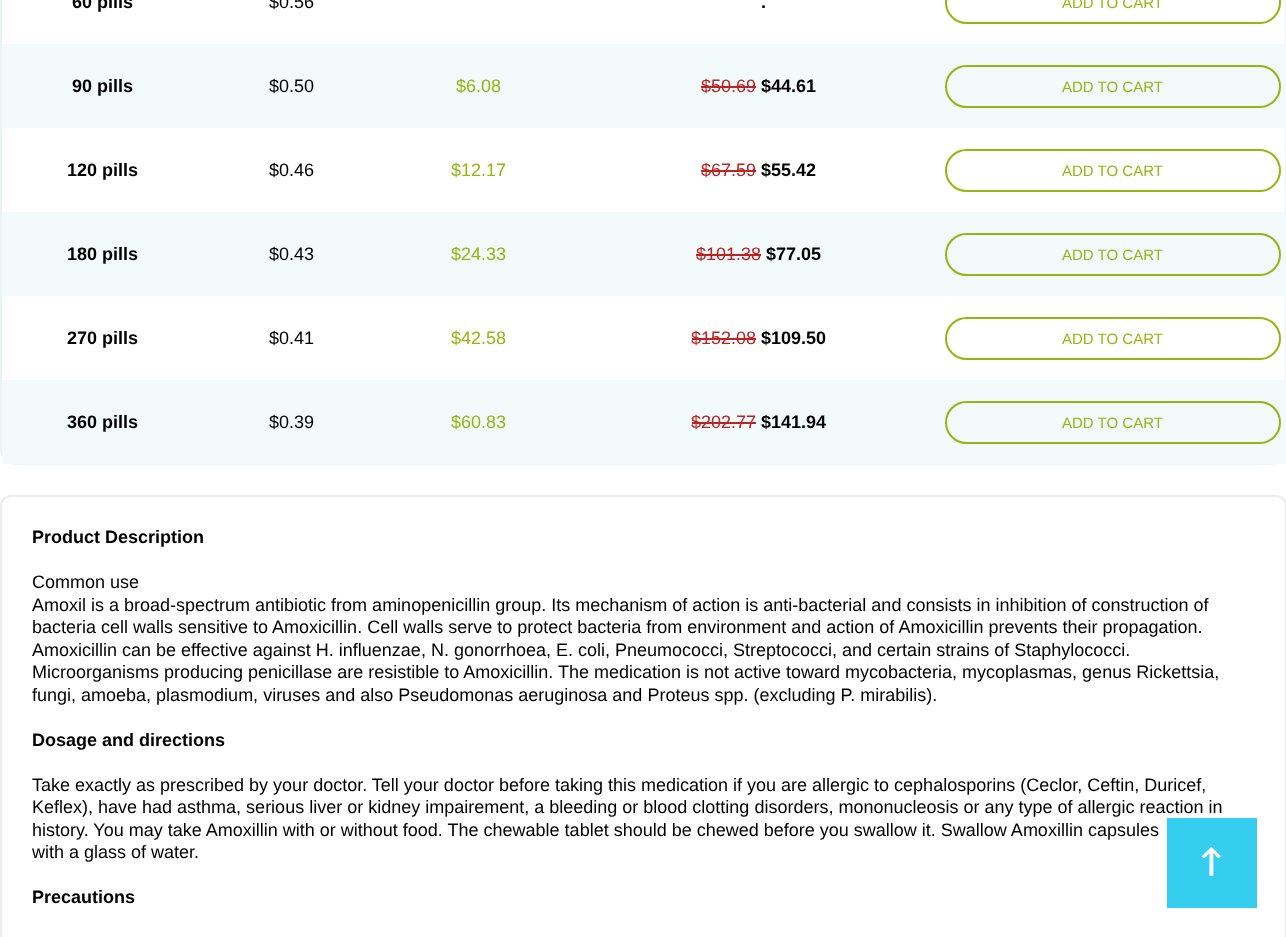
<svg xmlns="http://www.w3.org/2000/svg" width="1286" height="937">
<rect width="100%" height="100%" fill="#fff"/>
<rect x="1" y="-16" width="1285" height="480" rx="14" fill="none" stroke="#ebf4f5" stroke-width="2"/>
<text x="72" y="8" style="font-family:Liberation Sans;font-size:18px;font-weight:bold;fill:#000">60 pills</text>
<text x="269" y="8" style="font-family:Liberation Sans;font-size:18px;fill:#000">$0.56</text>
<text x="761" y="8" style="font-family:Liberation Sans;font-size:18px;font-weight:bold;fill:#000">.</text>
<rect x="946" y="-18" width="334" height="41" rx="20.5" fill="none" stroke="#92b710" stroke-width="2"/>
<text x="1062" y="8" style="font-family:Liberation Sans;font-size:15px;fill:#92b710">ADD TO CART</text>
<rect x="2" y="44" width="1284" height="84" fill="#f3fafb"/>
<text x="72" y="92" style="font-family:Liberation Sans;font-size:18px;font-weight:bold;fill:#000">90 pills</text>
<text x="269" y="92" style="font-family:Liberation Sans;font-size:18px;fill:#000">$0.50</text>
<text x="456" y="92" style="font-family:Liberation Sans;font-size:18px;fill:#92b710">$6.08</text>
<text x="701" y="92" style="font-family:Liberation Sans;font-size:18px;fill:#bb2424">$50.69</text>
<rect x="701" y="86" width="55" height="2" fill="#bb2424"/>
<text x="761" y="92" style="font-family:Liberation Sans;font-size:18px;font-weight:bold;fill:#000">$44.61</text>
<rect x="946" y="66" width="334" height="41" rx="20.5" fill="none" stroke="#92b710" stroke-width="2"/>
<text x="1062" y="92" style="font-family:Liberation Sans;font-size:15px;fill:#92b710">ADD TO CART</text>
<text x="67" y="176" style="font-family:Liberation Sans;font-size:18px;font-weight:bold;fill:#000">120 pills</text>
<text x="269" y="176" style="font-family:Liberation Sans;font-size:18px;fill:#000">$0.46</text>
<text x="451" y="176" style="font-family:Liberation Sans;font-size:18px;fill:#92b710">$12.17</text>
<text x="701" y="176" style="font-family:Liberation Sans;font-size:18px;fill:#bb2424">$67.59</text>
<rect x="701" y="170" width="55" height="2" fill="#bb2424"/>
<text x="761" y="176" style="font-family:Liberation Sans;font-size:18px;font-weight:bold;fill:#000">$55.42</text>
<rect x="946" y="150" width="334" height="41" rx="20.5" fill="none" stroke="#92b710" stroke-width="2"/>
<text x="1062" y="176" style="font-family:Liberation Sans;font-size:15px;fill:#92b710">ADD TO CART</text>
<rect x="2" y="212" width="1284" height="84" fill="#f3fafb"/>
<text x="67" y="260" style="font-family:Liberation Sans;font-size:18px;font-weight:bold;fill:#000">180 pills</text>
<text x="269" y="260" style="font-family:Liberation Sans;font-size:18px;fill:#000">$0.43</text>
<text x="451" y="260" style="font-family:Liberation Sans;font-size:18px;fill:#92b710">$24.33</text>
<text x="696" y="260" style="font-family:Liberation Sans;font-size:18px;fill:#bb2424">$101.38</text>
<rect x="696" y="254" width="65" height="2" fill="#bb2424"/>
<text x="766" y="260" style="font-family:Liberation Sans;font-size:18px;font-weight:bold;fill:#000">$77.05</text>
<rect x="946" y="234" width="334" height="41" rx="20.5" fill="none" stroke="#92b710" stroke-width="2"/>
<text x="1062" y="260" style="font-family:Liberation Sans;font-size:15px;fill:#92b710">ADD TO CART</text>
<text x="67" y="344" style="font-family:Liberation Sans;font-size:18px;font-weight:bold;fill:#000">270 pills</text>
<text x="269" y="344" style="font-family:Liberation Sans;font-size:18px;fill:#000">$0.41</text>
<text x="451" y="344" style="font-family:Liberation Sans;font-size:18px;fill:#92b710">$42.58</text>
<text x="691" y="344" style="font-family:Liberation Sans;font-size:18px;fill:#bb2424">$152.08</text>
<rect x="692" y="338" width="64" height="2" fill="#bb2424"/>
<text x="761" y="344" style="font-family:Liberation Sans;font-size:18px;font-weight:bold;fill:#000">$109.50</text>
<rect x="946" y="318" width="334" height="41" rx="20.5" fill="none" stroke="#92b710" stroke-width="2"/>
<text x="1062" y="344" style="font-family:Liberation Sans;font-size:15px;fill:#92b710">ADD TO CART</text>
<rect x="2" y="380" width="1284" height="84" fill="#f3fafb"/>
<text x="67" y="428" style="font-family:Liberation Sans;font-size:18px;font-weight:bold;fill:#000">360 pills</text>
<text x="269" y="428" style="font-family:Liberation Sans;font-size:18px;fill:#000">$0.39</text>
<text x="451" y="428" style="font-family:Liberation Sans;font-size:18px;fill:#92b710">$60.83</text>
<text x="691" y="428" style="font-family:Liberation Sans;font-size:18px;fill:#bb2424">$202.77</text>
<rect x="692" y="422" width="64" height="2" fill="#bb2424"/>
<text x="761" y="428" style="font-family:Liberation Sans;font-size:18px;font-weight:bold;fill:#000">$141.94</text>
<rect x="946" y="402" width="334" height="41" rx="20.5" fill="none" stroke="#92b710" stroke-width="2"/>
<text x="1062" y="428" style="font-family:Liberation Sans;font-size:15px;fill:#92b710">ADD TO CART</text>
<rect x="1" y="496" width="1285" height="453" rx="10" fill="none" stroke="#ededed" stroke-width="2"/>
<text x="32" y="543" style="font-family:Liberation Sans;font-size:18px;font-weight:bold;fill:#000">Product Description</text>
<text x="32" y="588" style="font-family:Liberation Sans;font-size:18px;fill:#000">Common use</text>
<text x="32" y="611" style="font-family:Liberation Sans;font-size:18px;fill:#000">Amoxil is a broad-spectrum antibiotic from aminopenicillin group. Its mechanism of action is anti-bacterial and consists in inhibition of construction of</text>
<text x="32" y="633" style="font-family:Liberation Sans;font-size:18px;fill:#000">bacteria cell walls sensitive to Amoxicillin. Cell walls serve to protect bacteria from environment and action of Amoxicillin prevents their propagation.</text>
<text x="32" y="656" style="font-family:Liberation Sans;font-size:18px;fill:#000">Amoxicillin can be effective against H. influenzae, N. gonorrhoea, E. coli, Pneumococci, Streptococci, and certain strains of Staphylococci.</text>
<text x="32" y="678" style="font-family:Liberation Sans;font-size:18px;fill:#000">Microorganisms producing penicillase are resistible to Amoxicillin. The medication is not active toward mycobacteria, mycoplasmas, genus Rickettsia,</text>
<text x="32" y="701" style="font-family:Liberation Sans;font-size:18px;fill:#000">fungi, amoeba, plasmodium, viruses and also Pseudomonas aeruginosa and Proteus spp. (excluding P. mirabilis).</text>
<text x="32" y="746" style="font-family:Liberation Sans;font-size:18px;font-weight:bold;fill:#000">Dosage and directions</text>
<text x="32" y="791" style="font-family:Liberation Sans;font-size:18px;fill:#000">Take exactly as prescribed by your doctor. Tell your doctor before taking this medication if you are allergic to cephalosporins (Ceclor, Ceftin, Duricef,</text>
<text x="32" y="813" style="font-family:Liberation Sans;font-size:18px;fill:#000">Keflex), have had asthma, serious liver or kidney impairement, a bleeding or blood clotting disorders, mononucleosis or any type of allergic reaction in</text>
<text x="32" y="836" style="font-family:Liberation Sans;font-size:18px;fill:#000">history. You may take Amoxillin with or without food. The chewable tablet should be chewed before you swallow it. Swallow Amoxillin capsules</text>
<text x="32" y="858" style="font-family:Liberation Sans;font-size:18px;fill:#000">with a glass of water.</text>
<text x="32" y="903" style="font-family:Liberation Sans;font-size:18px;font-weight:bold;fill:#000">Precautions</text>
<rect x="1167" y="818" width="90" height="90" fill="#36ceee"/>
<text x="1196" y="872" style="font-family:Carlito;font-size:34px;font-weight:bold;fill:#fff">↑</text>
</svg>
